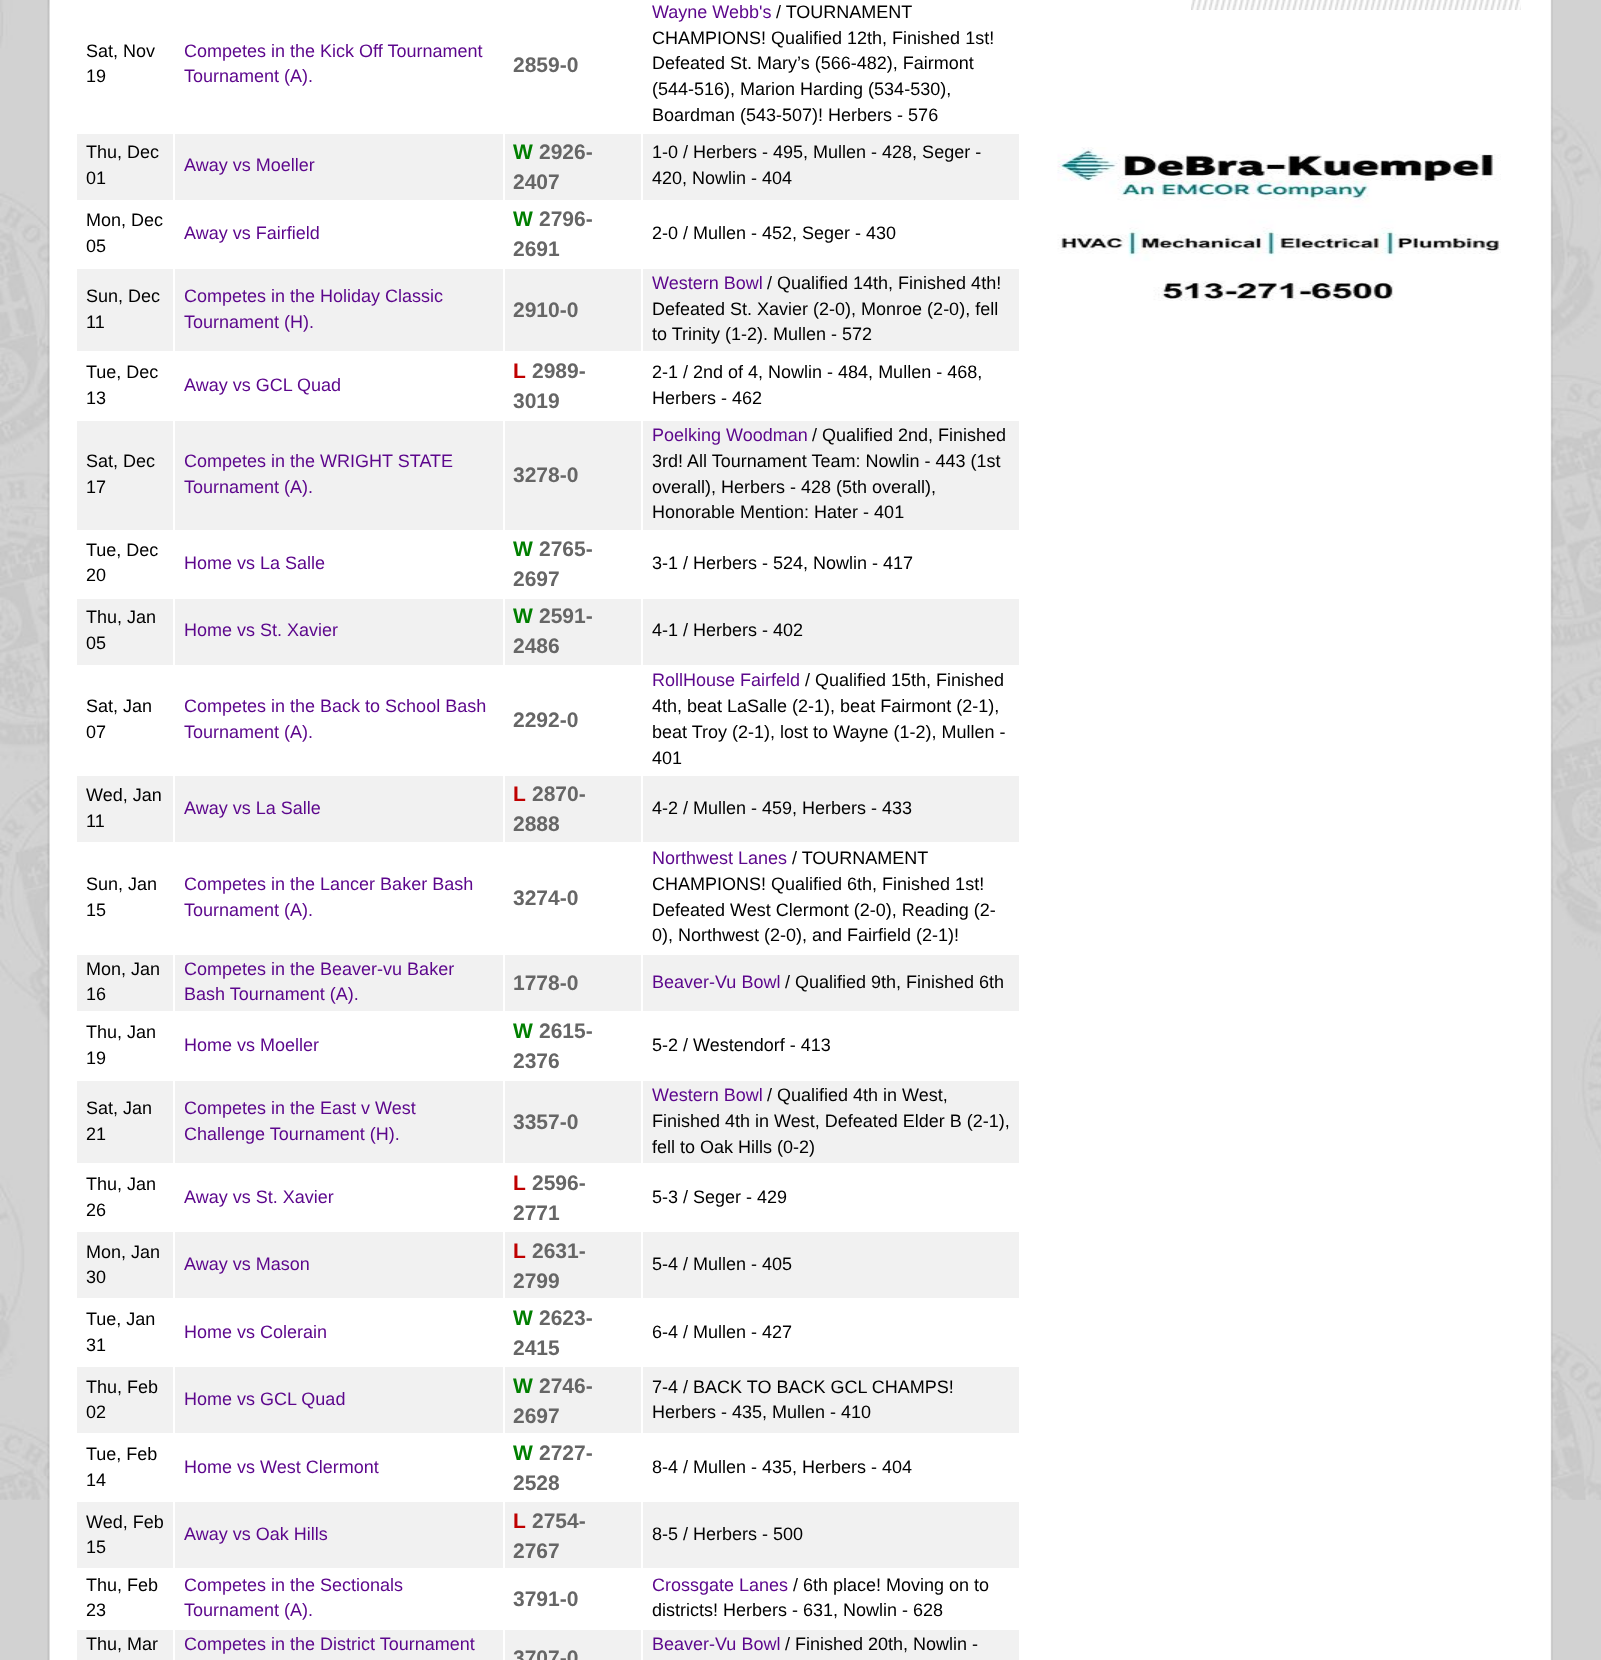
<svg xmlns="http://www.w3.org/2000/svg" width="1601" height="1660">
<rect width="100%" height="100%" fill="#d2d2d2"/>
<image x="0" y="0" width="1601" height="1500" href="media/1.png"/>
<image x="47" y="0" width="1506" height="1660" href="media/2.png"/>
<text x="86" y="57" style="font-family:Liberation Sans;font-size:18px;fill:#000">Sat, Nov</text>
<text x="86" y="82" style="font-family:Liberation Sans;font-size:18px;fill:#000">19</text>
<text x="184" y="57" style="font-family:Liberation Sans;font-size:18px;fill:#5c068c">Competes in the Kick Off Tournament</text>
<text x="184" y="82" style="font-family:Liberation Sans;font-size:18px;fill:#5c068c">Tournament (A).</text>
<text x="513" y="72" style="font-family:Liberation Sans;font-size:21px;font-weight:bold;fill:#666">2859-0</text>
<text x="652" y="18" style="font-family:Liberation Sans;font-size:18px;fill:#5c068c">Wayne Webb's</text>
<text x="776" y="18" style="font-family:Liberation Sans;font-size:18px;fill:#000">/ TOURNAMENT</text>
<text x="652" y="44" style="font-family:Liberation Sans;font-size:18px;fill:#000">CHAMPIONS! Qualified 12th, Finished 1st!</text>
<text x="652" y="69" style="font-family:Liberation Sans;font-size:18px;fill:#000">Defeated St. Mary’s (566-482), Fairmont</text>
<text x="652" y="95" style="font-family:Liberation Sans;font-size:18px;fill:#000">(544-516), Marion Harding (534-530),</text>
<text x="652" y="121" style="font-family:Liberation Sans;font-size:18px;fill:#000">Boardman (543-507)! Herbers - 576</text>
<rect x="77" y="134" width="942" height="66" fill="#f1f1f1"/>
<text x="86" y="158" style="font-family:Liberation Sans;font-size:18px;fill:#000">Thu, Dec</text>
<text x="86" y="184" style="font-family:Liberation Sans;font-size:18px;fill:#000">01</text>
<rect x="173" y="132" width="2" height="69" fill="#fff"/>
<text x="184" y="171" style="font-family:Liberation Sans;font-size:18px;fill:#5c068c">Away vs Moeller</text>
<rect x="503" y="132" width="2" height="69" fill="#fff"/>
<text x="513" y="159" style="font-family:Liberation Sans;font-size:21px;font-weight:bold;fill:#007f00">W</text>
<text x="539" y="159" style="font-family:Liberation Sans;font-size:21px;font-weight:bold;fill:#666">2926-</text>
<text x="513" y="189" style="font-family:Liberation Sans;font-size:21px;font-weight:bold;fill:#666">2407</text>
<rect x="641" y="132" width="2" height="69" fill="#fff"/>
<text x="652" y="158" style="font-family:Liberation Sans;font-size:18px;fill:#000">1-0 / Herbers - 495, Mullen - 428, Seger -</text>
<text x="652" y="184" style="font-family:Liberation Sans;font-size:18px;fill:#000">420, Nowlin - 404</text>
<text x="86" y="226" style="font-family:Liberation Sans;font-size:18px;fill:#000">Mon, Dec</text>
<text x="86" y="252" style="font-family:Liberation Sans;font-size:18px;fill:#000">05</text>
<text x="184" y="239" style="font-family:Liberation Sans;font-size:18px;fill:#5c068c">Away vs Fairfield</text>
<text x="513" y="226" style="font-family:Liberation Sans;font-size:21px;font-weight:bold;fill:#007f00">W</text>
<text x="539" y="226" style="font-family:Liberation Sans;font-size:21px;font-weight:bold;fill:#666">2796-</text>
<text x="513" y="256" style="font-family:Liberation Sans;font-size:21px;font-weight:bold;fill:#666">2691</text>
<text x="652" y="239" style="font-family:Liberation Sans;font-size:18px;fill:#000">2-0 / Mullen - 452, Seger - 430</text>
<rect x="77" y="269" width="942" height="82" fill="#f1f1f1"/>
<text x="86" y="302" style="font-family:Liberation Sans;font-size:18px;fill:#000">Sun, Dec</text>
<text x="86" y="328" style="font-family:Liberation Sans;font-size:18px;fill:#000">11</text>
<rect x="173" y="267" width="2" height="86" fill="#fff"/>
<text x="184" y="302" style="font-family:Liberation Sans;font-size:18px;fill:#5c068c">Competes in the Holiday Classic</text>
<text x="184" y="328" style="font-family:Liberation Sans;font-size:18px;fill:#5c068c">Tournament (H).</text>
<rect x="503" y="267" width="2" height="86" fill="#fff"/>
<text x="513" y="317" style="font-family:Liberation Sans;font-size:21px;font-weight:bold;fill:#666">2910-0</text>
<rect x="641" y="267" width="2" height="86" fill="#fff"/>
<text x="652" y="289" style="font-family:Liberation Sans;font-size:18px;fill:#5c068c">Western Bowl</text>
<text x="767" y="289" style="font-family:Liberation Sans;font-size:18px;fill:#000">/ Qualified 14th, Finished 4th!</text>
<text x="652" y="315" style="font-family:Liberation Sans;font-size:18px;fill:#000">Defeated St. Xavier (2-0), Monroe (2-0), fell</text>
<text x="652" y="340" style="font-family:Liberation Sans;font-size:18px;fill:#000">to Trinity (1-2). Mullen - 572</text>
<text x="86" y="378" style="font-family:Liberation Sans;font-size:18px;fill:#000">Tue, Dec</text>
<text x="86" y="404" style="font-family:Liberation Sans;font-size:18px;fill:#000">13</text>
<text x="184" y="391" style="font-family:Liberation Sans;font-size:18px;fill:#5c068c">Away vs GCL Quad</text>
<text x="513" y="378" style="font-family:Liberation Sans;font-size:21px;font-weight:bold;fill:#bf0000">L</text>
<text x="532" y="378" style="font-family:Liberation Sans;font-size:21px;font-weight:bold;fill:#666">2989-</text>
<text x="513" y="408" style="font-family:Liberation Sans;font-size:21px;font-weight:bold;fill:#666">3019</text>
<text x="652" y="378" style="font-family:Liberation Sans;font-size:18px;fill:#000">2-1 / 2nd of 4, Nowlin - 484, Mullen - 468,</text>
<text x="652" y="404" style="font-family:Liberation Sans;font-size:18px;fill:#000">Herbers - 462</text>
<rect x="77" y="421" width="942" height="109" fill="#f1f1f1"/>
<text x="86" y="467" style="font-family:Liberation Sans;font-size:18px;fill:#000">Sat, Dec</text>
<text x="86" y="493" style="font-family:Liberation Sans;font-size:18px;fill:#000">17</text>
<rect x="173" y="419" width="2" height="112" fill="#fff"/>
<text x="184" y="467" style="font-family:Liberation Sans;font-size:18px;fill:#5c068c">Competes in the WRIGHT STATE</text>
<text x="184" y="493" style="font-family:Liberation Sans;font-size:18px;fill:#5c068c">Tournament (A).</text>
<rect x="503" y="419" width="2" height="112" fill="#fff"/>
<text x="513" y="482" style="font-family:Liberation Sans;font-size:21px;font-weight:bold;fill:#666">3278-0</text>
<rect x="641" y="419" width="2" height="112" fill="#fff"/>
<text x="652" y="441" style="font-family:Liberation Sans;font-size:18px;fill:#5c068c">Poelking Woodman</text>
<text x="812" y="441" style="font-family:Liberation Sans;font-size:18px;fill:#000">/ Qualified 2nd, Finished</text>
<text x="652" y="467" style="font-family:Liberation Sans;font-size:18px;fill:#000">3rd! All Tournament Team: Nowlin - 443 (1st</text>
<text x="652" y="493" style="font-family:Liberation Sans;font-size:18px;fill:#000">overall), Herbers - 428 (5th overall),</text>
<text x="652" y="518" style="font-family:Liberation Sans;font-size:18px;fill:#000">Honorable Mention: Hater - 401</text>
<text x="86" y="556" style="font-family:Liberation Sans;font-size:18px;fill:#000">Tue, Dec</text>
<text x="86" y="581" style="font-family:Liberation Sans;font-size:18px;fill:#000">20</text>
<text x="184" y="569" style="font-family:Liberation Sans;font-size:18px;fill:#5c068c">Home vs La Salle</text>
<text x="513" y="556" style="font-family:Liberation Sans;font-size:21px;font-weight:bold;fill:#007f00">W</text>
<text x="539" y="556" style="font-family:Liberation Sans;font-size:21px;font-weight:bold;fill:#666">2765-</text>
<text x="513" y="586" style="font-family:Liberation Sans;font-size:21px;font-weight:bold;fill:#666">2697</text>
<text x="652" y="569" style="font-family:Liberation Sans;font-size:18px;fill:#000">3-1 / Herbers - 524, Nowlin - 417</text>
<rect x="77" y="599" width="942" height="66" fill="#f1f1f1"/>
<text x="86" y="623" style="font-family:Liberation Sans;font-size:18px;fill:#000">Thu, Jan</text>
<text x="86" y="649" style="font-family:Liberation Sans;font-size:18px;fill:#000">05</text>
<rect x="173" y="597" width="2" height="69" fill="#fff"/>
<text x="184" y="636" style="font-family:Liberation Sans;font-size:18px;fill:#5c068c">Home vs St. Xavier</text>
<rect x="503" y="597" width="2" height="69" fill="#fff"/>
<text x="513" y="623" style="font-family:Liberation Sans;font-size:21px;font-weight:bold;fill:#007f00">W</text>
<text x="539" y="623" style="font-family:Liberation Sans;font-size:21px;font-weight:bold;fill:#666">2591-</text>
<text x="513" y="653" style="font-family:Liberation Sans;font-size:21px;font-weight:bold;fill:#666">2486</text>
<rect x="641" y="597" width="2" height="69" fill="#fff"/>
<text x="652" y="636" style="font-family:Liberation Sans;font-size:18px;fill:#000">4-1 / Herbers - 402</text>
<text x="86" y="712" style="font-family:Liberation Sans;font-size:18px;fill:#000">Sat, Jan</text>
<text x="86" y="738" style="font-family:Liberation Sans;font-size:18px;fill:#000">07</text>
<text x="184" y="712" style="font-family:Liberation Sans;font-size:18px;fill:#5c068c">Competes in the Back to School Bash</text>
<text x="184" y="738" style="font-family:Liberation Sans;font-size:18px;fill:#5c068c">Tournament (A).</text>
<text x="513" y="727" style="font-family:Liberation Sans;font-size:21px;font-weight:bold;fill:#666">2292-0</text>
<text x="652" y="686" style="font-family:Liberation Sans;font-size:18px;fill:#5c068c">RollHouse Fairfeld</text>
<text x="805" y="686" style="font-family:Liberation Sans;font-size:18px;fill:#000">/ Qualified 15th, Finished</text>
<text x="652" y="712" style="font-family:Liberation Sans;font-size:18px;fill:#000">4th, beat LaSalle (2-1), beat Fairmont (2-1),</text>
<text x="652" y="738" style="font-family:Liberation Sans;font-size:18px;fill:#000">beat Troy (2-1), lost to Wayne (1-2), Mullen -</text>
<text x="652" y="764" style="font-family:Liberation Sans;font-size:18px;fill:#000">401</text>
<rect x="77" y="776" width="942" height="66" fill="#f1f1f1"/>
<text x="86" y="801" style="font-family:Liberation Sans;font-size:18px;fill:#000">Wed, Jan</text>
<text x="86" y="827" style="font-family:Liberation Sans;font-size:18px;fill:#000">11</text>
<rect x="173" y="774" width="2" height="69" fill="#fff"/>
<text x="184" y="814" style="font-family:Liberation Sans;font-size:18px;fill:#5c068c">Away vs La Salle</text>
<rect x="503" y="774" width="2" height="69" fill="#fff"/>
<text x="513" y="801" style="font-family:Liberation Sans;font-size:21px;font-weight:bold;fill:#bf0000">L</text>
<text x="532" y="801" style="font-family:Liberation Sans;font-size:21px;font-weight:bold;fill:#666">2870-</text>
<text x="513" y="831" style="font-family:Liberation Sans;font-size:21px;font-weight:bold;fill:#666">2888</text>
<rect x="641" y="774" width="2" height="69" fill="#fff"/>
<text x="652" y="814" style="font-family:Liberation Sans;font-size:18px;fill:#000">4-2 / Mullen - 459, Herbers - 433</text>
<text x="86" y="890" style="font-family:Liberation Sans;font-size:18px;fill:#000">Sun, Jan</text>
<text x="86" y="916" style="font-family:Liberation Sans;font-size:18px;fill:#000">15</text>
<text x="184" y="890" style="font-family:Liberation Sans;font-size:18px;fill:#5c068c">Competes in the Lancer Baker Bash</text>
<text x="184" y="916" style="font-family:Liberation Sans;font-size:18px;fill:#5c068c">Tournament (A).</text>
<text x="513" y="905" style="font-family:Liberation Sans;font-size:21px;font-weight:bold;fill:#666">3274-0</text>
<text x="652" y="864" style="font-family:Liberation Sans;font-size:18px;fill:#5c068c">Northwest Lanes</text>
<text x="792" y="864" style="font-family:Liberation Sans;font-size:18px;fill:#000">/ TOURNAMENT</text>
<text x="652" y="890" style="font-family:Liberation Sans;font-size:18px;fill:#000">CHAMPIONS! Qualified 6th, Finished 1st!</text>
<text x="652" y="916" style="font-family:Liberation Sans;font-size:18px;fill:#000">Defeated West Clermont (2-0), Reading (2-</text>
<text x="652" y="941" style="font-family:Liberation Sans;font-size:18px;fill:#000">0), Northwest (2-0), and Fairfield (2-1)!</text>
<rect x="77" y="955" width="942" height="56" fill="#f1f1f1"/>
<text x="86" y="975" style="font-family:Liberation Sans;font-size:18px;fill:#000">Mon, Jan</text>
<text x="86" y="1000" style="font-family:Liberation Sans;font-size:18px;fill:#000">16</text>
<rect x="173" y="953" width="2" height="60" fill="#fff"/>
<text x="184" y="975" style="font-family:Liberation Sans;font-size:18px;fill:#5c068c">Competes in the Beaver-vu Baker</text>
<text x="184" y="1000" style="font-family:Liberation Sans;font-size:18px;fill:#5c068c">Bash Tournament (A).</text>
<rect x="503" y="953" width="2" height="60" fill="#fff"/>
<text x="513" y="990" style="font-family:Liberation Sans;font-size:21px;font-weight:bold;fill:#666">1778-0</text>
<rect x="641" y="953" width="2" height="60" fill="#fff"/>
<text x="652" y="988" style="font-family:Liberation Sans;font-size:18px;fill:#5c068c">Beaver-Vu Bowl</text>
<text x="785" y="988" style="font-family:Liberation Sans;font-size:18px;fill:#000">/ Qualified 9th, Finished 6th</text>
<text x="86" y="1038" style="font-family:Liberation Sans;font-size:18px;fill:#000">Thu, Jan</text>
<text x="86" y="1064" style="font-family:Liberation Sans;font-size:18px;fill:#000">19</text>
<text x="184" y="1051" style="font-family:Liberation Sans;font-size:18px;fill:#5c068c">Home vs Moeller</text>
<text x="513" y="1038" style="font-family:Liberation Sans;font-size:21px;font-weight:bold;fill:#007f00">W</text>
<text x="539" y="1038" style="font-family:Liberation Sans;font-size:21px;font-weight:bold;fill:#666">2615-</text>
<text x="513" y="1068" style="font-family:Liberation Sans;font-size:21px;font-weight:bold;fill:#666">2376</text>
<text x="652" y="1051" style="font-family:Liberation Sans;font-size:18px;fill:#000">5-2 / Westendorf - 413</text>
<rect x="77" y="1081" width="942" height="82" fill="#f1f1f1"/>
<text x="86" y="1114" style="font-family:Liberation Sans;font-size:18px;fill:#000">Sat, Jan</text>
<text x="86" y="1140" style="font-family:Liberation Sans;font-size:18px;fill:#000">21</text>
<rect x="173" y="1079" width="2" height="85" fill="#fff"/>
<text x="184" y="1114" style="font-family:Liberation Sans;font-size:18px;fill:#5c068c">Competes in the East v West</text>
<text x="184" y="1140" style="font-family:Liberation Sans;font-size:18px;fill:#5c068c">Challenge Tournament (H).</text>
<rect x="503" y="1079" width="2" height="85" fill="#fff"/>
<text x="513" y="1129" style="font-family:Liberation Sans;font-size:21px;font-weight:bold;fill:#666">3357-0</text>
<rect x="641" y="1079" width="2" height="85" fill="#fff"/>
<text x="652" y="1101" style="font-family:Liberation Sans;font-size:18px;fill:#5c068c">Western Bowl</text>
<text x="767" y="1101" style="font-family:Liberation Sans;font-size:18px;fill:#000">/ Qualified 4th in West,</text>
<text x="652" y="1127" style="font-family:Liberation Sans;font-size:18px;fill:#000">Finished 4th in West, Defeated Elder B (2-1),</text>
<text x="652" y="1153" style="font-family:Liberation Sans;font-size:18px;fill:#000">fell to Oak Hills (0-2)</text>
<text x="86" y="1190" style="font-family:Liberation Sans;font-size:18px;fill:#000">Thu, Jan</text>
<text x="86" y="1216" style="font-family:Liberation Sans;font-size:18px;fill:#000">26</text>
<text x="184" y="1203" style="font-family:Liberation Sans;font-size:18px;fill:#5c068c">Away vs St. Xavier</text>
<text x="513" y="1190" style="font-family:Liberation Sans;font-size:21px;font-weight:bold;fill:#bf0000">L</text>
<text x="532" y="1190" style="font-family:Liberation Sans;font-size:21px;font-weight:bold;fill:#666">2596-</text>
<text x="513" y="1220" style="font-family:Liberation Sans;font-size:21px;font-weight:bold;fill:#666">2771</text>
<text x="652" y="1203" style="font-family:Liberation Sans;font-size:18px;fill:#000">5-3 / Seger - 429</text>
<rect x="77" y="1232" width="942" height="66" fill="#f1f1f1"/>
<text x="86" y="1258" style="font-family:Liberation Sans;font-size:18px;fill:#000">Mon, Jan</text>
<text x="86" y="1283" style="font-family:Liberation Sans;font-size:18px;fill:#000">30</text>
<rect x="173" y="1230" width="2" height="69" fill="#fff"/>
<text x="184" y="1270" style="font-family:Liberation Sans;font-size:18px;fill:#5c068c">Away vs Mason</text>
<rect x="503" y="1230" width="2" height="69" fill="#fff"/>
<text x="513" y="1258" style="font-family:Liberation Sans;font-size:21px;font-weight:bold;fill:#bf0000">L</text>
<text x="532" y="1258" style="font-family:Liberation Sans;font-size:21px;font-weight:bold;fill:#666">2631-</text>
<text x="513" y="1288" style="font-family:Liberation Sans;font-size:21px;font-weight:bold;fill:#666">2799</text>
<rect x="641" y="1230" width="2" height="69" fill="#fff"/>
<text x="652" y="1270" style="font-family:Liberation Sans;font-size:18px;fill:#000">5-4 / Mullen - 405</text>
<text x="86" y="1325" style="font-family:Liberation Sans;font-size:18px;fill:#000">Tue, Jan</text>
<text x="86" y="1351" style="font-family:Liberation Sans;font-size:18px;fill:#000">31</text>
<text x="184" y="1338" style="font-family:Liberation Sans;font-size:18px;fill:#5c068c">Home vs Colerain</text>
<text x="513" y="1325" style="font-family:Liberation Sans;font-size:21px;font-weight:bold;fill:#007f00">W</text>
<text x="539" y="1325" style="font-family:Liberation Sans;font-size:21px;font-weight:bold;fill:#666">2623-</text>
<text x="513" y="1355" style="font-family:Liberation Sans;font-size:21px;font-weight:bold;fill:#666">2415</text>
<text x="652" y="1338" style="font-family:Liberation Sans;font-size:18px;fill:#000">6-4 / Mullen - 427</text>
<rect x="77" y="1367" width="942" height="66" fill="#f1f1f1"/>
<text x="86" y="1393" style="font-family:Liberation Sans;font-size:18px;fill:#000">Thu, Feb</text>
<text x="86" y="1418" style="font-family:Liberation Sans;font-size:18px;fill:#000">02</text>
<rect x="173" y="1365" width="2" height="69" fill="#fff"/>
<text x="184" y="1405" style="font-family:Liberation Sans;font-size:18px;fill:#5c068c">Home vs GCL Quad</text>
<rect x="503" y="1365" width="2" height="69" fill="#fff"/>
<text x="513" y="1393" style="font-family:Liberation Sans;font-size:21px;font-weight:bold;fill:#007f00">W</text>
<text x="539" y="1393" style="font-family:Liberation Sans;font-size:21px;font-weight:bold;fill:#666">2746-</text>
<text x="513" y="1423" style="font-family:Liberation Sans;font-size:21px;font-weight:bold;fill:#666">2697</text>
<rect x="641" y="1365" width="2" height="69" fill="#fff"/>
<text x="652" y="1393" style="font-family:Liberation Sans;font-size:18px;fill:#000">7-4 / BACK TO BACK GCL CHAMPS!</text>
<text x="652" y="1418" style="font-family:Liberation Sans;font-size:18px;fill:#000">Herbers - 435, Mullen - 410</text>
<text x="86" y="1460" style="font-family:Liberation Sans;font-size:18px;fill:#000">Tue, Feb</text>
<text x="86" y="1486" style="font-family:Liberation Sans;font-size:18px;fill:#000">14</text>
<text x="184" y="1473" style="font-family:Liberation Sans;font-size:18px;fill:#5c068c">Home vs West Clermont</text>
<text x="513" y="1460" style="font-family:Liberation Sans;font-size:21px;font-weight:bold;fill:#007f00">W</text>
<text x="539" y="1460" style="font-family:Liberation Sans;font-size:21px;font-weight:bold;fill:#666">2727-</text>
<text x="513" y="1490" style="font-family:Liberation Sans;font-size:21px;font-weight:bold;fill:#666">2528</text>
<text x="652" y="1473" style="font-family:Liberation Sans;font-size:18px;fill:#000">8-4 / Mullen - 435, Herbers - 404</text>
<rect x="77" y="1502" width="942" height="66" fill="#f1f1f1"/>
<text x="86" y="1528" style="font-family:Liberation Sans;font-size:18px;fill:#000">Wed, Feb</text>
<text x="86" y="1553" style="font-family:Liberation Sans;font-size:18px;fill:#000">15</text>
<rect x="173" y="1500" width="2" height="69" fill="#fff"/>
<text x="184" y="1540" style="font-family:Liberation Sans;font-size:18px;fill:#5c068c">Away vs Oak Hills</text>
<rect x="503" y="1500" width="2" height="69" fill="#fff"/>
<text x="513" y="1528" style="font-family:Liberation Sans;font-size:21px;font-weight:bold;fill:#bf0000">L</text>
<text x="532" y="1528" style="font-family:Liberation Sans;font-size:21px;font-weight:bold;fill:#666">2754-</text>
<text x="513" y="1558" style="font-family:Liberation Sans;font-size:21px;font-weight:bold;fill:#666">2767</text>
<rect x="641" y="1500" width="2" height="69" fill="#fff"/>
<text x="652" y="1540" style="font-family:Liberation Sans;font-size:18px;fill:#000">8-5 / Herbers - 500</text>
<text x="86" y="1591" style="font-family:Liberation Sans;font-size:18px;fill:#000">Thu, Feb</text>
<text x="86" y="1616" style="font-family:Liberation Sans;font-size:18px;fill:#000">23</text>
<text x="184" y="1591" style="font-family:Liberation Sans;font-size:18px;fill:#5c068c">Competes in the Sectionals</text>
<text x="184" y="1616" style="font-family:Liberation Sans;font-size:18px;fill:#5c068c">Tournament (A).</text>
<text x="513" y="1606" style="font-family:Liberation Sans;font-size:21px;font-weight:bold;fill:#666">3791-0</text>
<text x="652" y="1591" style="font-family:Liberation Sans;font-size:18px;fill:#5c068c">Crossgate Lanes</text>
<text x="793" y="1591" style="font-family:Liberation Sans;font-size:18px;fill:#000">/ 6th place! Moving on to</text>
<text x="652" y="1616" style="font-family:Liberation Sans;font-size:18px;fill:#000">districts! Herbers - 631, Nowlin - 628</text>
<rect x="77" y="1630" width="942" height="30" fill="#f1f1f1"/>
<text x="86" y="1650" style="font-family:Liberation Sans;font-size:18px;fill:#000">Thu, Mar</text>
<rect x="173" y="1628" width="2" height="32" fill="#fff"/>
<text x="184" y="1650" style="font-family:Liberation Sans;font-size:18px;fill:#5c068c">Competes in the District Tournament</text>
<rect x="641" y="1628" width="2" height="32" fill="#fff"/>
<text x="652" y="1650" style="font-family:Liberation Sans;font-size:18px;fill:#5c068c">Beaver-Vu Bowl</text>
<text x="785" y="1650" style="font-family:Liberation Sans;font-size:18px;fill:#000">/ Finished 20th, Nowlin -</text>
<rect x="503" y="1628" width="2" height="32" fill="#fff"/>
<text x="513" y="1665" style="font-family:Liberation Sans;font-size:21px;font-weight:bold;fill:#666">3707-0</text>
<image x="1191" y="0" width="330" height="10" href="media/3.png"/>
<image x="1057" y="147" width="444" height="154" href="media/4.png"/>
</svg>
